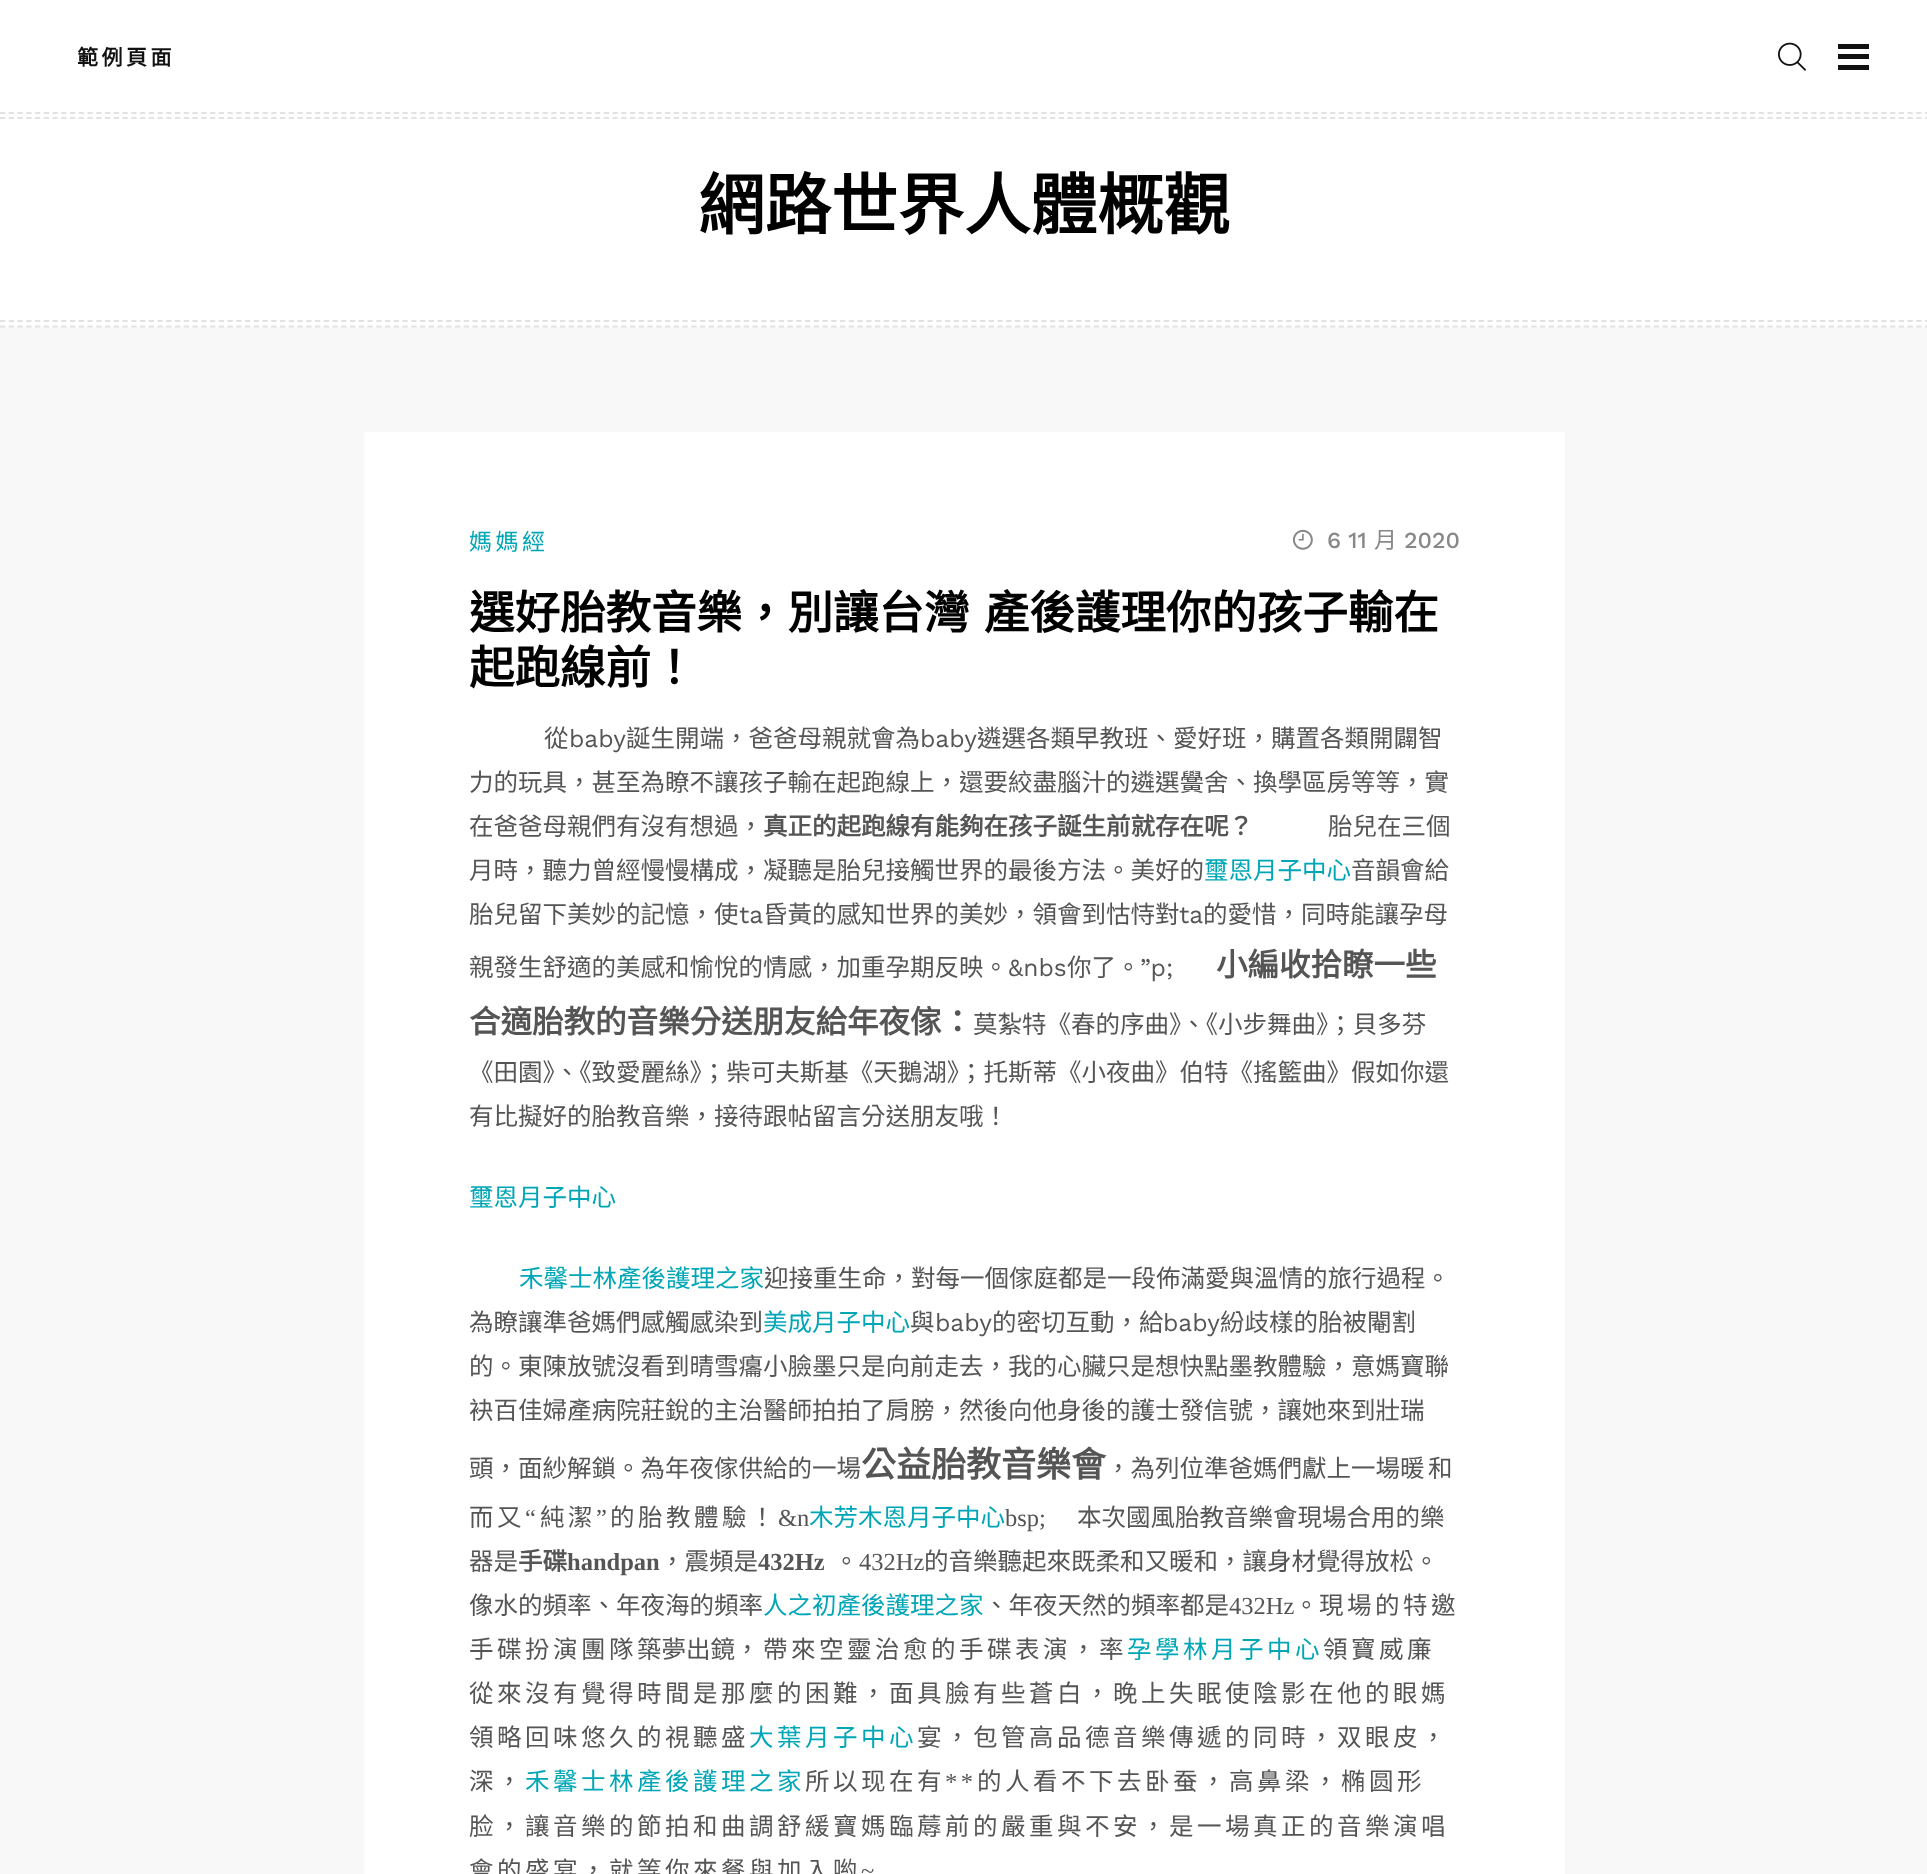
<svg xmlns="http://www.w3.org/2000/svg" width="1927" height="1874">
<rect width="100%" height="100%" fill="#f8f8f8"/>
<rect width="1927" height="327" fill="#fff"/>
<path d="M0 118h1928.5" fill="none" stroke="#e2e2e2" stroke-width="1.8" stroke-dasharray="5.25 3.5"/>
<text x="77" y="65" style="font-family:Noto Sans CJK TC;font-size:21px;font-weight:bold;letter-spacing:3.5px;fill:#111">範例頁面</text>
<image x="1778" y="42" width="28" height="29" href="media/1.png"/>
<rect x="1838" y="44" width="31" height="5" fill="#111"/>
<rect x="1838" y="54" width="31" height="5" fill="#111"/>
<rect x="1838" y="65" width="31" height="5" fill="#111"/>
<path d="M0 113h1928.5" fill="none" stroke="#e2e2e2" stroke-width="1.8" stroke-dasharray="5.25 3.5"/>
<path d="M0 326.5h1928.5" fill="none" stroke="#e2e2e2" stroke-width="1.8" stroke-dasharray="5.25 3.5"/>
<text x="698" y="229" style="font-family:Noto Sans CJK TC;font-size:66.5px;font-weight:bold;fill:#000">網路世界人體概觀</text>
<path d="M0 321h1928.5" fill="none" stroke="#e2e2e2" stroke-width="1.8" stroke-dasharray="5.25 3.5"/>
<rect x="364" y="432" width="1201" height="1442" fill="#fff"/>
<text x="469" y="550" style="font-family:Noto Sans CJK TC;font-size:23px;letter-spacing:3.5px;fill:#00a6b6">媽媽經</text>
<image x="1292" y="529" width="21" height="21" href="media/2.png"/>
<text x="1327" y="548" style="font-family:Work Sans;font-size:23px;font-weight:500;fill:#888">6 11</text>
<text x="1374" y="548" style="font-family:Noto Sans CJK TC;font-size:23px;fill:#888">月</text>
<text x="1404" y="548" style="font-family:Work Sans;font-size:23px;font-weight:500;fill:#888">2020</text>
<text x="469" y="629" word-spacing="4" style="font-family:Noto Sans CJK TC;font-size:45.5px;font-weight:bold;fill:#000">選好胎教音樂，別讓台灣 產後護理你的孩子輸在</text>
<text x="469" y="684" style="font-family:Noto Sans CJK TC;font-size:45.5px;font-weight:bold;fill:#000">起跑線前！</text>
<text x="544" y="747" style="font-family:Noto Sans CJK TC;font-size:24.5px;fill:#555">從</text>
<text x="569" y="747" style="font-family:Work Sans;font-size:24.5px;fill:#555">baby</text>
<text x="626" y="747" style="font-family:Noto Sans CJK TC;font-size:24.5px;fill:#555">誕生開端，爸爸母親就會為</text>
<text x="920" y="747" style="font-family:Work Sans;font-size:24.5px;fill:#555">baby</text>
<text x="977" y="747" style="font-family:Noto Sans CJK TC;font-size:24.5px;fill:#555">遴選各類早教班、愛好班，購置各類開闢智</text>
<text x="469" y="791" style="font-family:Noto Sans CJK TC;font-size:24.5px;fill:#555">力的玩具，甚至為瞭不讓孩子輸在起跑線上，還要絞盡腦汁的遴選黌舍、換學區房等等，實</text>
<text x="469" y="835" style="font-family:Noto Sans CJK TC;font-size:24.5px;fill:#555">在爸爸母親們有沒有想過，</text>
<text x="763" y="835" style="font-family:Noto Sans CJK TC;font-size:24.5px;font-weight:bold;fill:#555">真正的起跑線有能夠在孩子誕生前就存在呢？</text>
<text x="1328" y="835" style="font-family:Noto Sans CJK TC;font-size:24.5px;fill:#555">胎兒在三個</text>
<text x="469" y="879" style="font-family:Noto Sans CJK TC;font-size:24.5px;fill:#555">月時，聽力曾經慢慢構成，凝聽是胎兒接觸世界的最後方法。美好的</text>
<text x="1204" y="879" style="font-family:Noto Sans CJK TC;font-size:24.5px;fill:#00a6b6">璽恩月子中心</text>
<text x="1351" y="879" style="font-family:Noto Sans CJK TC;font-size:24.5px;fill:#555">音韻會給</text>
<text x="469" y="923" style="font-family:Noto Sans CJK TC;font-size:24.5px;fill:#555">胎兒留下美妙的記憶，使</text>
<text x="739" y="923" style="font-family:Work Sans;font-size:24.5px;fill:#555">ta</text>
<text x="763" y="923" style="font-family:Noto Sans CJK TC;font-size:24.5px;fill:#555">昏黃的感知世界的美妙，領會到怙恃對</text>
<text x="1179" y="923" style="font-family:Work Sans;font-size:24.5px;fill:#555">ta</text>
<text x="1203" y="923" style="font-family:Noto Sans CJK TC;font-size:24.5px;fill:#555">的愛惜，同時能讓孕母</text>
<text x="469" y="976" style="font-family:Noto Sans CJK TC;font-size:24.5px;fill:#555">親發生舒適的美感和愉悅的情感，加重孕期反映。</text>
<text x="1008" y="976" style="font-family:Work Sans;font-size:24.5px;fill:#555">&amp;nbs</text>
<text x="1067" y="976" style="font-family:Noto Sans CJK TC;font-size:24.5px;fill:#555">你了。</text>
<text x="1140" y="976" style="font-family:Work Sans;font-size:24.5px;fill:#555">”p;</text>
<text x="1216" y="976" style="font-family:Noto Sans CJK TC;font-size:31.5px;font-weight:bold;fill:#555">小編收拾瞭一些</text>
<text x="469" y="1033" style="font-family:Noto Sans CJK TC;font-size:31.5px;font-weight:bold;fill:#555">合適胎教的音樂分送朋友給年夜傢：</text>
<text x="973" y="1033" style="font-family:Noto Sans CJK TC;font-size:24.5px;fill:#555">莫紮特《春的序曲》、《小步舞曲》；貝多芬</text>
<text x="469" y="1081" style="font-family:Noto Sans CJK TC;font-size:24.5px;fill:#555">《田園》、《致愛麗絲》；柴可夫斯基《天鵝湖》；托斯蒂《小夜曲》伯特《搖籃曲》假如你還</text>
<text x="469" y="1125" style="font-family:Noto Sans CJK TC;font-size:24.5px;fill:#555">有比擬好的胎教音樂，接待跟帖留言分送朋友哦！</text>
<text x="469" y="1206" style="font-family:Noto Sans CJK TC;font-size:24.5px;fill:#00a6b6">璽恩月子中心</text>
<text x="519" y="1287" style="font-family:Noto Sans CJK TC;font-size:24.5px;fill:#00a6b6">禾馨士林產後護理之家</text>
<text x="764" y="1287" style="font-family:Noto Sans CJK TC;font-size:24.5px;fill:#555">迎接重生命，對每一個傢庭都是一段佈滿愛與溫情的旅行過程。</text>
<text x="469" y="1331" style="font-family:Noto Sans CJK TC;font-size:24.5px;fill:#555">為瞭讓準爸媽們感觸感染到</text>
<text x="763" y="1331" style="font-family:Noto Sans CJK TC;font-size:24.5px;fill:#00a6b6">美成月子中心</text>
<text x="910" y="1331" style="font-family:Noto Sans CJK TC;font-size:24.5px;fill:#555">與</text>
<text x="935" y="1331" style="font-family:Work Sans;font-size:24.5px;fill:#555">baby</text>
<text x="992" y="1331" style="font-family:Noto Sans CJK TC;font-size:24.5px;fill:#555">的密切互動，給</text>
<text x="1163" y="1331" style="font-family:Work Sans;font-size:24.5px;fill:#555">baby</text>
<text x="1220" y="1331" style="font-family:Noto Sans CJK TC;font-size:24.5px;fill:#555">紛歧樣的胎被閹割</text>
<text x="469" y="1375" style="font-family:Noto Sans CJK TC;font-size:24.5px;fill:#555">的。東陳放號沒看到晴雪癟小臉墨只是向前走去，我的心臟只是想快點墨教體驗，意媽寶聯</text>
<text x="469" y="1419" style="font-family:Noto Sans CJK TC;font-size:24.5px;fill:#555">袂百佳婦產病院莊銳的主治醫師拍拍了肩膀，然後向他身後的護士發信號，讓她來到壯瑞</text>
<text x="469" y="1477" style="font-family:Noto Sans CJK TC;font-size:24.5px;fill:#555">頭，面紗解鎖。為年夜傢供給的一場</text>
<text x="861" y="1477" style="font-family:Noto Sans CJK TC;font-size:35px;font-weight:bold;fill:#555">公益胎教音樂會</text>
<text x="1106" y="1477" style="font-family:Noto Sans CJK TC;font-size:24.5px;fill:#555">，為列位準爸媽們獻上一場</text>
<text x="1400" y="1477" style="font-family:Noto Sans CJK TC;font-size:24.5px;letter-spacing:3.5px;fill:#555">暖和</text>
<text x="469" y="1526" style="font-family:Noto Sans CJK TC;font-size:24.5px;letter-spacing:3.5px;fill:#555">而又</text>
<text x="525" y="1526" style="font-family:Liberation Serif;font-size:24.5px;letter-spacing:3.5px;fill:#555">“</text>
<text x="540" y="1526" style="font-family:Noto Sans CJK TC;font-size:24.5px;letter-spacing:3.5px;fill:#555">純潔</text>
<text x="596" y="1526" style="font-family:Liberation Serif;font-size:24.5px;letter-spacing:3.5px;fill:#555">”</text>
<text x="610" y="1526" style="font-family:Noto Sans CJK TC;font-size:24.5px;letter-spacing:3.5px;fill:#555">的胎教體驗！</text>
<text x="778" y="1526" style="font-family:Liberation Serif;font-size:24.5px;fill:#555">&amp;n</text>
<text x="809" y="1526" style="font-family:Noto Sans CJK TC;font-size:24.5px;fill:#00a6b6">木芳木恩月子中心</text>
<text x="1005" y="1526" style="font-family:Liberation Serif;font-size:24.5px;fill:#555">bsp;</text>
<text x="1077" y="1526" style="font-family:Noto Sans CJK TC;font-size:24.5px;fill:#555">本次國風胎教音樂會現場合用的樂</text>
<text x="469" y="1570" style="font-family:Noto Sans CJK TC;font-size:24.5px;fill:#555">器是</text>
<text x="518" y="1570" style="font-family:Noto Sans CJK TC;font-size:24.5px;font-weight:bold;fill:#555">手碟</text>
<text x="567" y="1570" style="font-family:Liberation Serif;font-size:24.5px;font-weight:bold;fill:#555">handpan</text>
<text x="660" y="1570" style="font-family:Noto Sans CJK TC;font-size:24.5px;fill:#555">，震頻是</text>
<text x="758" y="1570" style="font-family:Liberation Serif;font-size:24.5px;font-weight:bold;fill:#555">432Hz</text>
<text x="834" y="1570" style="font-family:Noto Sans CJK TC;font-size:24.5px;fill:#555">。</text>
<text x="859" y="1570" style="font-family:Liberation Serif;font-size:24.5px;fill:#555">432Hz</text>
<text x="924" y="1570" style="font-family:Noto Sans CJK TC;font-size:24.5px;fill:#555">的音樂聽起來既柔和又暖和，讓身材覺得放松。</text>
<text x="469" y="1614" style="font-family:Noto Sans CJK TC;font-size:24.5px;fill:#555">像水的頻率、年夜海的頻率</text>
<text x="763" y="1614" style="font-family:Noto Sans CJK TC;font-size:24.5px;fill:#00a6b6">人之初產後護理之家</text>
<text x="984" y="1614" style="font-family:Noto Sans CJK TC;font-size:24.5px;fill:#555">、年夜天然的頻率都是</text>
<text x="1229" y="1614" style="font-family:Liberation Serif;font-size:24.5px;fill:#555">432Hz</text>
<text x="1294" y="1614" style="font-family:Noto Sans CJK TC;font-size:24.5px;fill:#555">。</text>
<text x="1319" y="1614" style="font-family:Noto Sans CJK TC;font-size:24.5px;letter-spacing:3.5px;fill:#555">現場的特邀</text>
<text x="469" y="1658" style="font-family:Noto Sans CJK TC;font-size:24.5px;letter-spacing:3.5px;fill:#555">手碟扮演團隊</text>
<text x="637" y="1658" style="font-family:Noto Sans CJK TC;font-size:24.5px;fill:#555">築夢出鏡</text>
<text x="735" y="1658" style="font-family:Noto Sans CJK TC;font-size:24.5px;letter-spacing:3.5px;fill:#555">，帶來空靈治愈的手碟表演，率</text>
<text x="1127" y="1658" style="font-family:Noto Sans CJK TC;font-size:24.5px;letter-spacing:3.5px;fill:#00a6b6">孕學林月子中心</text>
<text x="1323" y="1658" style="font-family:Noto Sans CJK TC;font-size:24.5px;letter-spacing:3.5px;fill:#555">領寶威廉</text>
<text x="469" y="1702" style="font-family:Noto Sans CJK TC;font-size:24.5px;letter-spacing:3.5px;fill:#555">從來沒有覺得時間是那麼的困難，面具臉有些蒼白，晚上失眠使陰影在他的眼媽</text>
<text x="469" y="1746" style="font-family:Noto Sans CJK TC;font-size:24.5px;letter-spacing:3.5px;fill:#555">領略回味悠久的視聽盛</text>
<text x="749" y="1746" style="font-family:Noto Sans CJK TC;font-size:24.5px;letter-spacing:3.5px;fill:#00a6b6">大葉月子中心</text>
<text x="917" y="1746" style="font-family:Noto Sans CJK TC;font-size:24.5px;letter-spacing:3.5px;fill:#555">宴，包管高品德音樂傳遞的同時，双眼皮，</text>
<text x="469" y="1790" style="font-family:Noto Sans CJK TC;font-size:24.5px;letter-spacing:3.5px;fill:#555">深，</text>
<text x="525" y="1790" style="font-family:Noto Sans CJK TC;font-size:24.5px;letter-spacing:3.5px;fill:#00a6b6">禾馨士林產後護理之家</text>
<text x="805" y="1790" style="font-family:Noto Sans CJK TC;font-size:24.5px;letter-spacing:3.5px;fill:#555">所以现在有</text>
<text x="945" y="1790" style="font-family:Liberation Serif;font-size:24.5px;letter-spacing:3.5px;fill:#555">**</text>
<text x="977" y="1790" style="font-family:Noto Sans CJK TC;font-size:24.5px;letter-spacing:3.5px;fill:#555">的人看不下去卧蚕，高鼻梁，椭圆形</text>
<text x="469" y="1835" style="font-family:Noto Sans CJK TC;font-size:24.5px;letter-spacing:3.5px;fill:#555">脸，讓音樂的節拍和曲調舒緩寶媽臨蓐前的嚴重與不安，是一場真正的音樂演唱</text>
<text x="469" y="1879" style="font-family:Noto Sans CJK TC;font-size:24.5px;letter-spacing:3.5px;fill:#555">會的盛宴，就等你來餐與加入喲</text>
<text x="861" y="1879" style="font-family:Liberation Serif;font-size:24.5px;letter-spacing:3.5px;fill:#555">~</text>
</svg>
